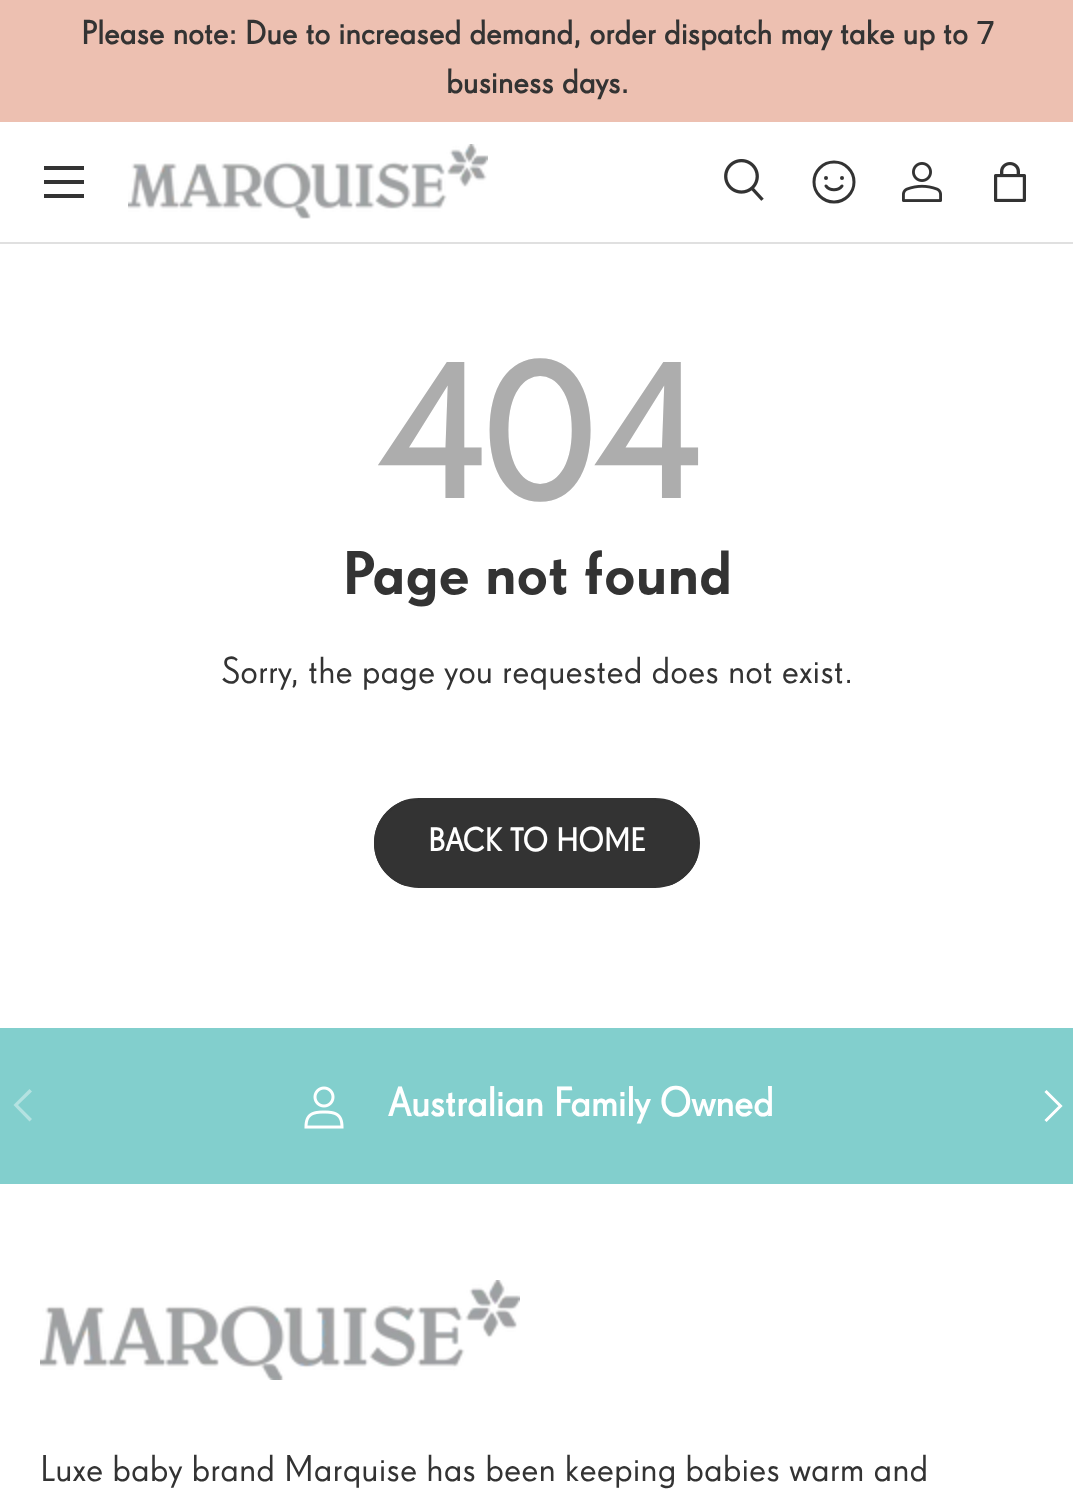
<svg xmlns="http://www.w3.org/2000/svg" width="1073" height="1499">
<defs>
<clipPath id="clip1"><rect x="374" y="798" width="326" height="90" rx="45"/></clipPath>
<linearGradient id="g1" gradientUnits="userSpaceOnUse" x1="-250" y1="727" x2="680" y2="959"><stop offset="0.6" stop-color="#5a5a5a"/><stop offset="0.6" stop-color="#333"/><stop offset="1" stop-color="#333"/></linearGradient>
</defs>
<rect width="100%" height="100%" fill="#fff"/>
<rect width="1073" height="122" fill="#edc0b1"/>
<text x="81" y="44" style="font-family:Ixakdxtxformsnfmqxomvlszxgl;font-size:32.4px;font-weight:bold;fill:#333">Please note: Due to increased demand, order dispatch may take up to 7</text>
<text x="446" y="93" style="font-family:Ixakdxtxformsnfmqxomvlszxgl;font-size:32.4px;font-weight:bold;fill:#333">business days.</text>
<rect y="242" width="1073" height="2" fill="#e0e0e0"/>
<rect x="44" y="166" width="40" height="4" fill="#333"/>
<rect x="44" y="194" width="40" height="4" fill="#333"/>
<rect x="44" y="180" width="40" height="4" fill="#333"/>
<image x="128" y="144" width="360" height="75" href="media/1.png"/>
<image x="724" y="159" width="40" height="42" href="media/2.png"/>
<circle cx="834" cy="182" r="20" fill="none" stroke="#333" stroke-width="3"/>
<circle cx="826" cy="178" r="2" fill="#333"/>
<circle cx="842" cy="178" r="2" fill="#333"/>
<path d="M826 186c4 5 12 5 16 0" fill="none" stroke="#333" stroke-width="3" stroke-linecap="round" stroke-linejoin="round"/>
<image x="902" y="162" width="40" height="40" href="media/3.png"/>
<image x="994" y="162" width="32" height="40" href="media/4.png"/>
<text x="375" y="498" style="font-family:Ixakdxtxformsnfmqxomvlszxgl;font-size:192px;font-weight:bold;fill:#adadad">404</text>
<text x="343" y="594" style="font-family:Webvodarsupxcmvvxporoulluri;font-size:59.75px;font-weight:500;fill:#333">Page not found</text>
<text x="221" y="683" style="font-family:Ixakdxtxformsnfmqxomvlszxgl;font-size:36px;fill:#333">Sorry, the page you requested does not exist.</text>
<g clip-path="url(#clip1)">
<rect x="374" y="800" width="324" height="86" fill="url(#g1)"/>
</g>
<rect x="375" y="799" width="324" height="88" rx="44" fill="none" stroke="#333" stroke-width="2"/>
<text x="428" y="851" style="font-family:Ixakdxtxformsnfmqxomvlszxgl;font-size:31.75px;font-weight:bold;fill:#fff">BACK TO HOME</text>
<rect y="1028" width="1073" height="156" fill="#82cfcd"/>
<image x="304" y="1086" width="40" height="43" href="media/5.png"/>
<text x="388" y="1116" style="font-family:Ixakdxtxformsnfmqxomvlszxgl;font-size:39.5px;font-weight:bold;fill:#fff">Australian Family Owned</text>
<path d="M13.5 1105l16-16l2.5 2.5l-14 13.5l14 14l-2.5 2.5z" fill="#b4e2e1"/>
<path d="M1045.5 1091l15 15l-15 15" fill="none" stroke="#fff" stroke-width="3"/>
<image x="40" y="1280" width="480" height="100" href="media/6.png"/>
<text x="40" y="1481" style="font-family:Ixakdxtxformsnfmqxomvlszxgl;font-size:36px;fill:#333">Luxe baby brand Marquise has been keeping babies warm and</text>
</svg>
